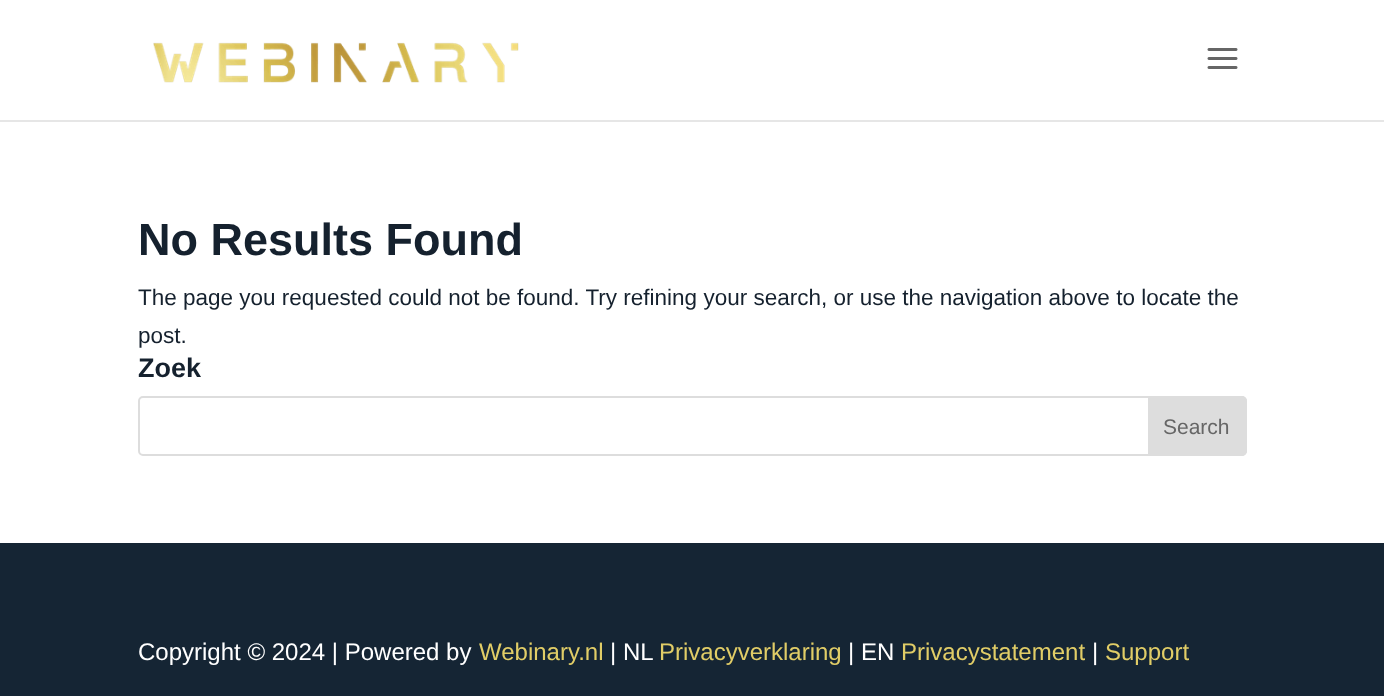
<svg xmlns="http://www.w3.org/2000/svg" width="1384" height="696">
<rect width="100%" height="100%" fill="#fff"/>
<path d="M0 120v2h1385v-120h-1v118z" fill="#e6e6e6"/>
<image x="153" y="42" width="366" height="41" href="media/1.png"/>
<image x="1207" y="48" width="31" height="21" href="media/2.png"/>
<text x="138" y="255" style="font-family:Liberation Sans;font-size:45px;font-weight:bold;fill:#15212e">No Results Found</text>
<text x="138" y="305" style="font-family:Liberation Sans;font-size:22.5px;fill:#15212e">The page you requested could not be found. Try refining your search, or use the navigation above to locate the</text>
<text x="138" y="343" style="font-family:Liberation Sans;font-size:22.5px;fill:#15212e">post.</text>
<text x="138" y="377" style="font-family:Liberation Sans;font-size:27px;font-weight:bold;fill:#15212e">Zoek</text>
<rect x="139" y="397" width="1107" height="58" rx="4" fill="none" stroke="#ddd" stroke-width="2"/>
<path d="M1149 397h93c2 0 4 2 4 4v50c0 2-2 4-4 4h-93z" fill="#ddd" stroke="#ddd" stroke-width="2"/>
<text x="1163" y="434" style="font-family:Liberation Sans;font-size:21px;fill:#666">Search</text>
<rect y="543" width="1384" height="153" fill="#152534"/>
<text x="138" y="660" style="font-family:Liberation Sans;font-size:24px;fill:#fff">Copyright © 2024 | Powered by</text>
<text x="479" y="660" style="font-family:Liberation Sans;font-size:24px;fill:#e1cd67">Webinary.nl</text>
<text x="610" y="660" style="font-family:Liberation Sans;font-size:24px;fill:#fff">| NL</text>
<text x="659" y="660" style="font-family:Liberation Sans;font-size:24px;fill:#e1cd67">Privacyverklaring</text>
<text x="848" y="660" style="font-family:Liberation Sans;font-size:24px;fill:#fff">| EN</text>
<text x="901" y="660" style="font-family:Liberation Sans;font-size:24px;fill:#e1cd67">Privacystatement</text>
<text x="1092" y="660" style="font-family:Liberation Sans;font-size:24px;fill:#fff">|</text>
<text x="1105" y="660" style="font-family:Liberation Sans;font-size:24px;fill:#e1cd67">Support</text>
</svg>
